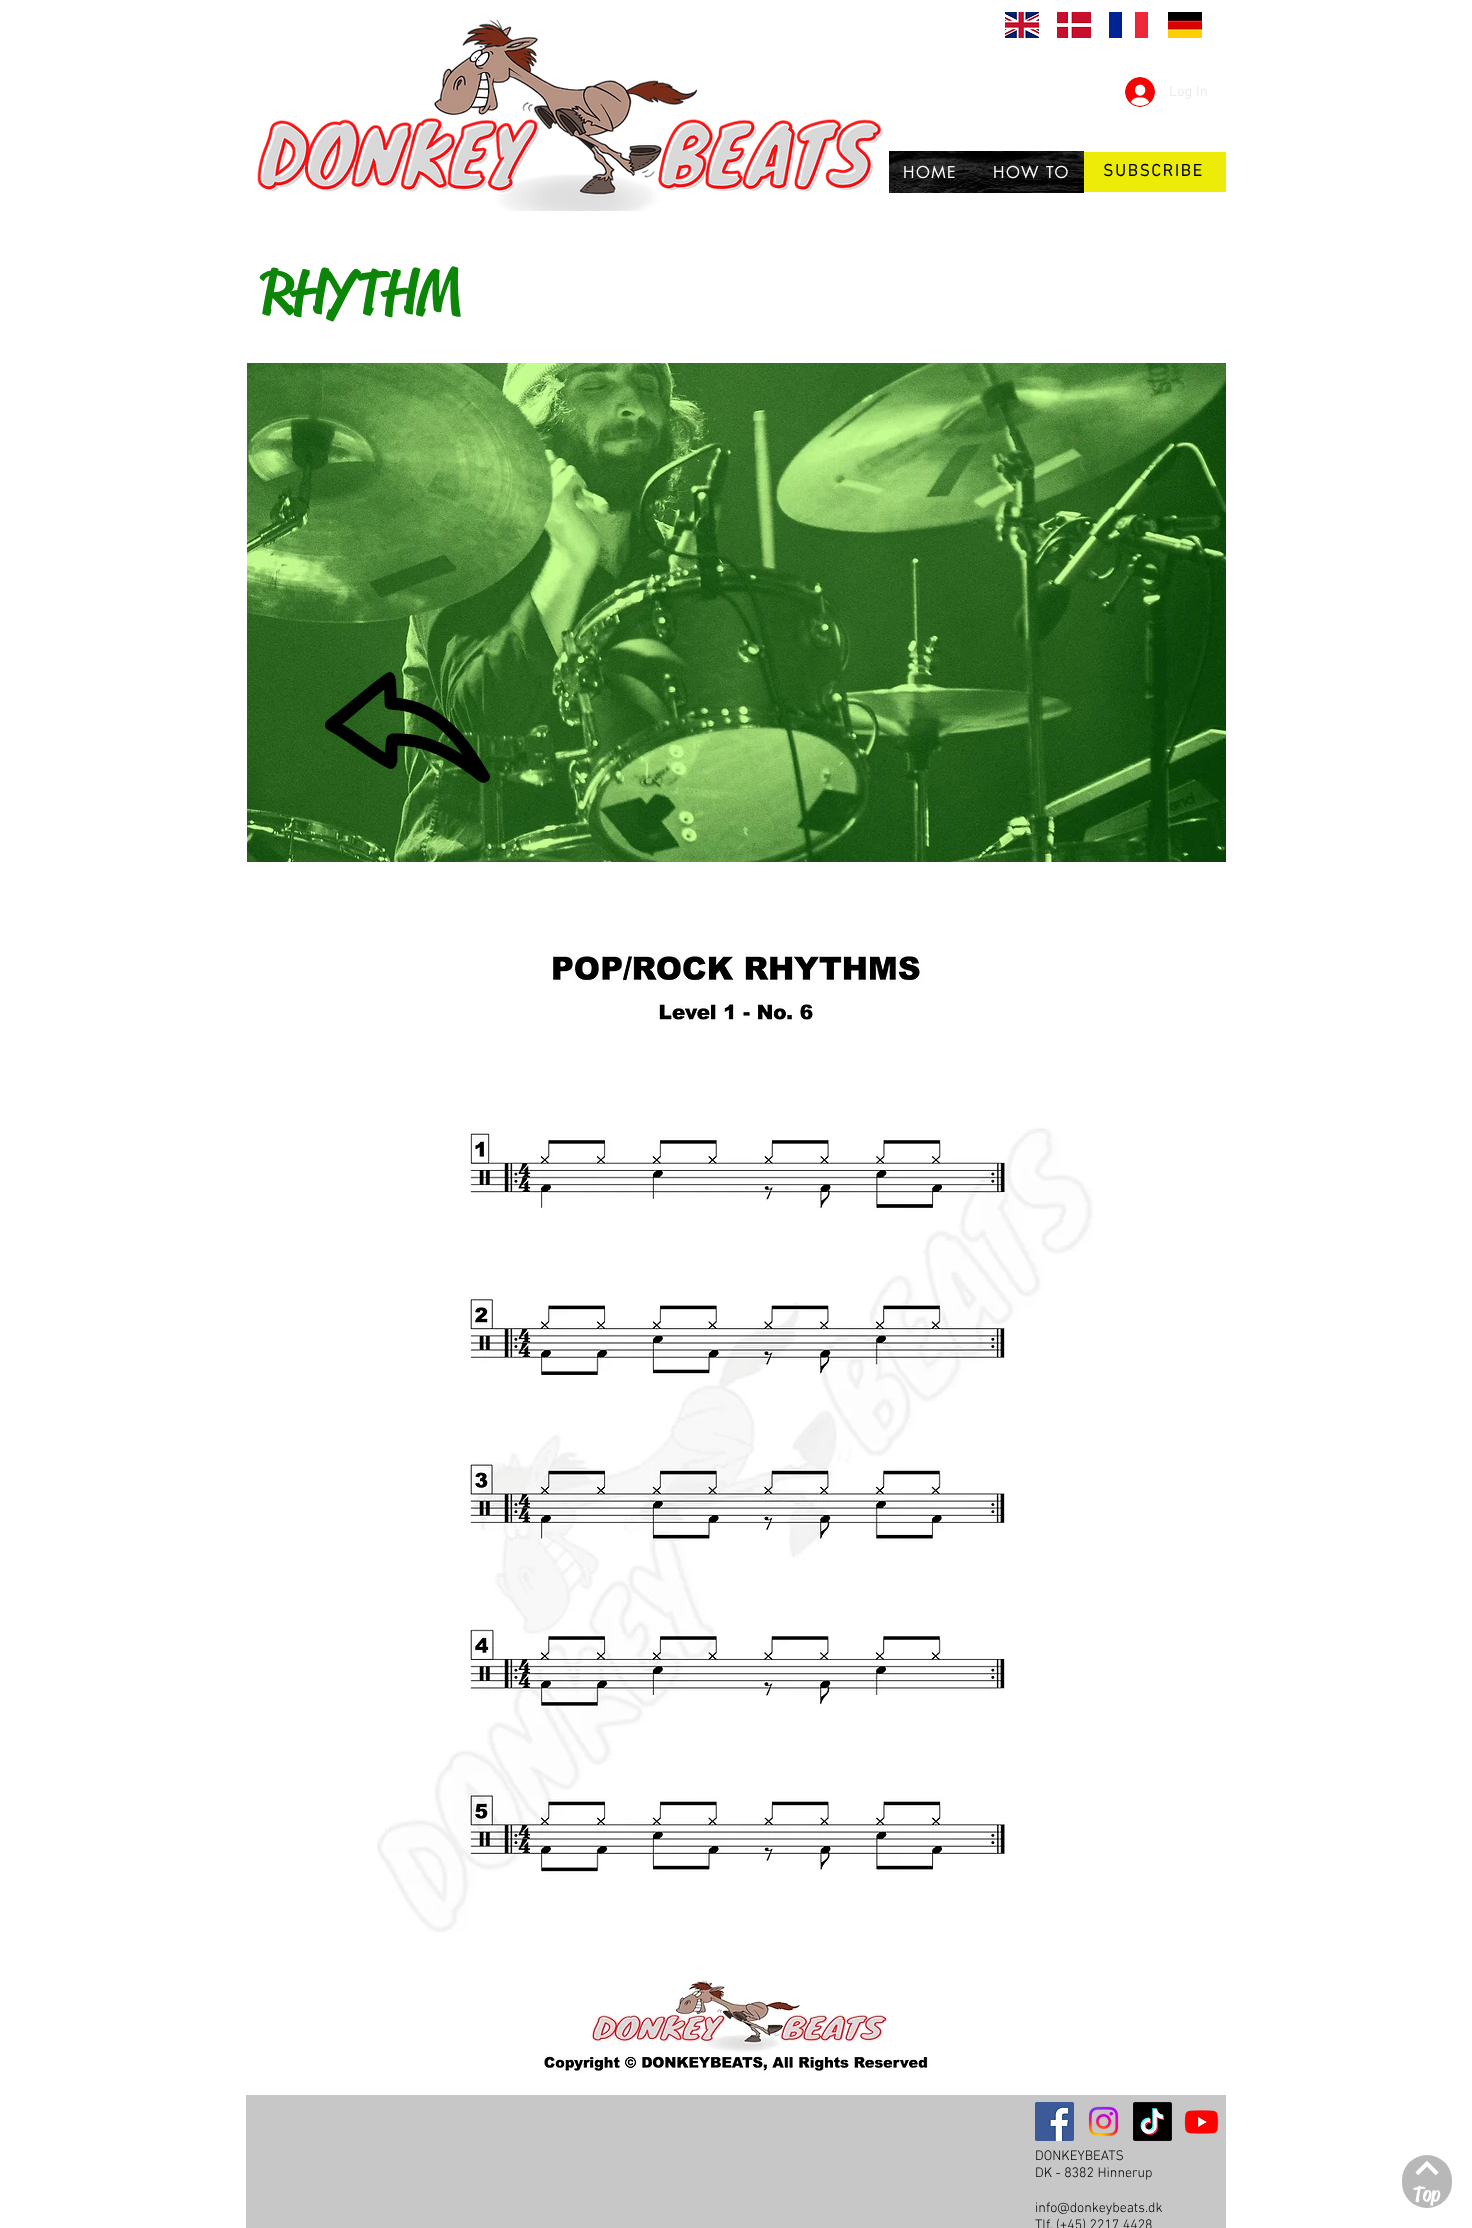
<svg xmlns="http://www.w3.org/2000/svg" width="1472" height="2228">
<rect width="100%" height="100%" fill="#fff"/>
<image x="257" y="19" width="626" height="192" href="media/1.png"/>
<image x="1005" y="12" width="34" height="26" href="media/2.png"/>
<image x="1057" y="12" width="34" height="26" href="media/3.png"/>
<image x="1109" y="12" width="39" height="26" href="media/4.png"/>
<image x="1168" y="12" width="34" height="26" href="media/5.png"/>
<image x="1125" y="77" width="30" height="30" href="media/6.png"/>
<text x="1169" y="96" style="font-family:'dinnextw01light';font-size:15px;font-weight:300;fill:#e8e6e6">Log In</text>
<image x="889" y="151" width="195" height="42" href="media/7.png"/>
<text x="903" y="178" style="font-family:futura;font-size:16px;letter-spacing:1.5px;fill:#fff">HOME</text>
<text x="993" y="178" style="font-family:futura;font-size:16px;letter-spacing:1.5px;fill:#fff">HOW TO</text>
<rect x="1084" y="152" width="142" height="40" fill="#ecec08"/>
<text x="1103" y="176" style="font-family:'dinnextw01light';font-size:17px;font-weight:bold;letter-spacing:1.75px;fill:#000">SUBSCRIBE</text>
<text x="261" y="312" style="font-family:'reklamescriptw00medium';font-size:60px;font-weight:500;fill:#0d8509">RHYTHM</text>
<image x="247" y="363" width="979" height="499" href="media/8.png"/>
<image x="325" y="672" width="165" height="111" href="media/9.png"/>
<image x="377" y="953" width="716" height="1120" href="media/10.png"/>
<rect x="246" y="2095" width="980" height="133" fill="#c7c7c7"/>
<image x="1035" y="2102" width="39" height="39" href="media/11.png"/>
<image x="1088" y="2106" width="31" height="31" href="media/12.png"/>
<image x="1133" y="2102" width="39" height="39" href="media/13.png"/>
<image x="1184" y="2110" width="35" height="24" href="media/14.png"/>
<text x="1035" y="2160" style="font-family:'dinnextw01light';font-size:14px;font-weight:300;fill:#000">DONKEYBEATS</text>
<text x="1035" y="2177" style="font-family:'dinnextw01light';font-size:14px;font-weight:300;fill:#000">DK - 8382 Hinnerup</text>
<text x="1035" y="2212" style="font-family:'dinnextw01light';font-size:14px;font-weight:300;fill:#000">info@donkeybeats.dk</text>
<text x="1035" y="2229" style="font-family:'dinnextw01light';font-size:14px;font-weight:300;fill:#000">Tlf. (+45) 2217 4428</text>
<rect x="1402" y="2155" width="50" height="53" rx="25" fill="#b8b8b8"/>
<image x="1415" y="2161" width="24" height="14" href="media/15.png"/>
<text x="1413" y="2201" style="font-family:'reklamescriptw00medium';font-size:21px;font-weight:500;fill:#fff">Top</text>
</svg>
